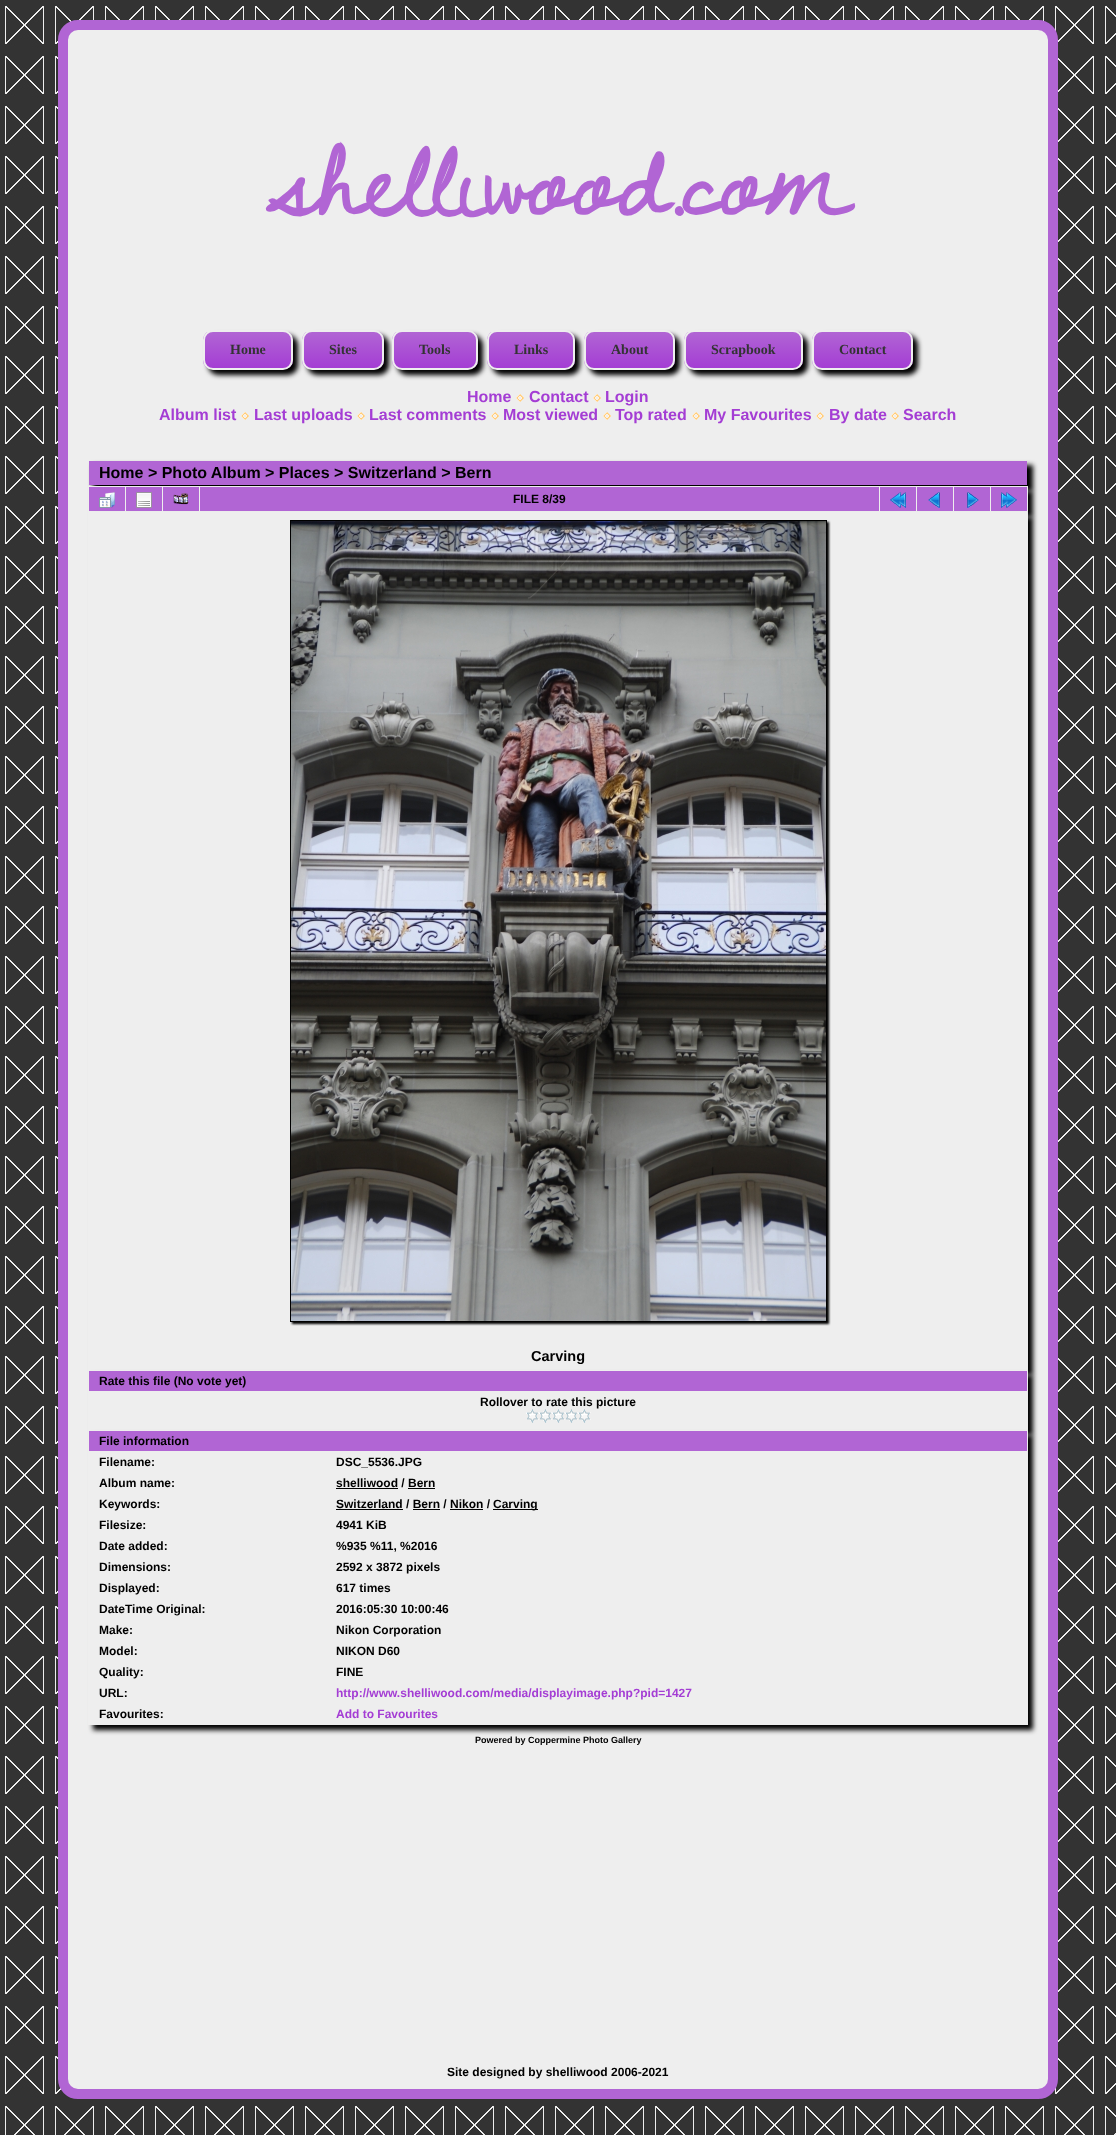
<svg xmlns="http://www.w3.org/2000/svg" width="1116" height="2135">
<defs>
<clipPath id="clip1"><rect x="203" y="330" width="90" height="40" rx="10"/></clipPath>
<linearGradient id="g1" gradientUnits="userSpaceOnUse" x1="205" y1="332" x2="205" y2="368"><stop offset="0" stop-color="#b165d4"/><stop offset="1" stop-color="#a43dd4"/></linearGradient>
<clipPath id="clip2"><rect x="302" y="330" width="82" height="40" rx="10"/></clipPath>
<linearGradient id="g2" gradientUnits="userSpaceOnUse" x1="304" y1="332" x2="304" y2="368"><stop offset="0" stop-color="#b165d4"/><stop offset="1" stop-color="#a43dd4"/></linearGradient>
<clipPath id="clip3"><rect x="392" y="330" width="86" height="40" rx="10"/></clipPath>
<linearGradient id="g3" gradientUnits="userSpaceOnUse" x1="394" y1="332" x2="394" y2="368"><stop offset="0" stop-color="#b165d4"/><stop offset="1" stop-color="#a43dd4"/></linearGradient>
<clipPath id="clip4"><rect x="487" y="330" width="88" height="40" rx="10"/></clipPath>
<linearGradient id="g4" gradientUnits="userSpaceOnUse" x1="489" y1="332" x2="489" y2="368"><stop offset="0" stop-color="#b165d4"/><stop offset="1" stop-color="#a43dd4"/></linearGradient>
<clipPath id="clip5"><rect x="584" y="330" width="91" height="40" rx="10"/></clipPath>
<linearGradient id="g5" gradientUnits="userSpaceOnUse" x1="586" y1="332" x2="586" y2="368"><stop offset="0" stop-color="#b165d4"/><stop offset="1" stop-color="#a43dd4"/></linearGradient>
<clipPath id="clip6"><rect x="684" y="330" width="119" height="40" rx="10"/></clipPath>
<linearGradient id="g6" gradientUnits="userSpaceOnUse" x1="686" y1="332" x2="686" y2="368"><stop offset="0" stop-color="#b165d4"/><stop offset="1" stop-color="#a43dd4"/></linearGradient>
<clipPath id="clip7"><rect x="812" y="330" width="101" height="40" rx="10"/></clipPath>
<linearGradient id="g7" gradientUnits="userSpaceOnUse" x1="814" y1="332" x2="814" y2="368"><stop offset="0" stop-color="#b165d4"/><stop offset="1" stop-color="#a43dd4"/></linearGradient>
</defs>
<rect width="100%" height="100%" fill="#fff"/>
<image x="0" y="0" width="1116" height="2135" href="media/1.png"/>
<rect x="63" y="25" width="990" height="2069" rx="15" fill="#eee" stroke="#b165d4" stroke-width="10"/>
<text x="267" y="215" style="font-family:Dawning of a New Day;font-size:120px;font-weight:bold;fill:#b165d4">shelliwood.com</text>
<rect x="208" y="335" width="90" height="40" rx="10" fill="#000" filter="blur(2.5px)"/>
<g clip-path="url(#clip1)">
<rect x="203" y="332" width="90" height="36" fill="url(#g1)"/>
</g>
<rect x="204" y="331" width="88" height="38" rx="9" fill="none" stroke="#eee" stroke-width="2"/>
<text x="230" y="354" style="font-family:Liberation Serif;font-size:14px;font-weight:bold;fill:#333">Home</text>
<rect x="307" y="335" width="82" height="40" rx="10" fill="#000" filter="blur(2.5px)"/>
<g clip-path="url(#clip2)">
<rect x="302" y="332" width="82" height="36" fill="url(#g2)"/>
</g>
<rect x="303" y="331" width="80" height="38" rx="9" fill="none" stroke="#eee" stroke-width="2"/>
<text x="329" y="354" style="font-family:Liberation Serif;font-size:14px;font-weight:bold;fill:#333">Sites</text>
<rect x="397" y="335" width="86" height="40" rx="10" fill="#000" filter="blur(2.5px)"/>
<g clip-path="url(#clip3)">
<rect x="392" y="332" width="86" height="36" fill="url(#g3)"/>
</g>
<rect x="393" y="331" width="84" height="38" rx="9" fill="none" stroke="#eee" stroke-width="2"/>
<text x="419" y="354" style="font-family:Liberation Serif;font-size:14px;font-weight:bold;fill:#333">Tools</text>
<rect x="492" y="335" width="88" height="40" rx="10" fill="#000" filter="blur(2.5px)"/>
<g clip-path="url(#clip4)">
<rect x="487" y="332" width="88" height="36" fill="url(#g4)"/>
</g>
<rect x="488" y="331" width="86" height="38" rx="9" fill="none" stroke="#eee" stroke-width="2"/>
<text x="514" y="354" style="font-family:Liberation Serif;font-size:14px;font-weight:bold;fill:#333">Links</text>
<rect x="589" y="335" width="91" height="40" rx="10" fill="#000" filter="blur(2.5px)"/>
<g clip-path="url(#clip5)">
<rect x="584" y="332" width="91" height="36" fill="url(#g5)"/>
</g>
<rect x="585" y="331" width="89" height="38" rx="9" fill="none" stroke="#eee" stroke-width="2"/>
<text x="611" y="354" style="font-family:Liberation Serif;font-size:14px;font-weight:bold;fill:#333">About</text>
<rect x="689" y="335" width="119" height="40" rx="10" fill="#000" filter="blur(2.5px)"/>
<g clip-path="url(#clip6)">
<rect x="684" y="332" width="119" height="36" fill="url(#g6)"/>
</g>
<rect x="685" y="331" width="117" height="38" rx="9" fill="none" stroke="#eee" stroke-width="2"/>
<text x="711" y="354" style="font-family:Liberation Serif;font-size:14px;font-weight:bold;fill:#333">Scrapbook</text>
<rect x="817" y="335" width="101" height="40" rx="10" fill="#000" filter="blur(2.5px)"/>
<g clip-path="url(#clip7)">
<rect x="812" y="332" width="101" height="36" fill="url(#g7)"/>
</g>
<rect x="813" y="331" width="99" height="38" rx="9" fill="none" stroke="#eee" stroke-width="2"/>
<text x="839" y="354" style="font-family:Liberation Serif;font-size:14px;font-weight:bold;fill:#333">Contact</text>
<text x="467" y="402" style="font-family:Liberation Sans;font-size:16px;font-weight:bold;fill:#a43dd4">Home</text>
<image x="516" y="394" width="8" height="8" href="media/2.png"/>
<text x="529" y="402" style="font-family:Liberation Sans;font-size:16px;font-weight:bold;fill:#a43dd4">Contact</text>
<image x="593" y="394" width="8" height="8" href="media/2.png"/>
<text x="605" y="402" style="font-family:Liberation Sans;font-size:16px;font-weight:bold;fill:#a43dd4">Login</text>
<text x="159" y="420" style="font-family:Liberation Sans;font-size:16px;font-weight:bold;fill:#a43dd4">Album list</text>
<image x="241" y="412" width="8" height="8" href="media/2.png"/>
<text x="254" y="420" style="font-family:Liberation Sans;font-size:16px;font-weight:bold;fill:#a43dd4">Last uploads</text>
<image x="357" y="412" width="8" height="8" href="media/2.png"/>
<text x="369" y="420" style="font-family:Liberation Sans;font-size:16px;font-weight:bold;fill:#a43dd4">Last comments</text>
<image x="491" y="412" width="8" height="8" href="media/2.png"/>
<text x="503" y="420" style="font-family:Liberation Sans;font-size:16px;font-weight:bold;fill:#a43dd4">Most viewed</text>
<image x="603" y="412" width="8" height="8" href="media/2.png"/>
<text x="615" y="420" style="font-family:Liberation Sans;font-size:16px;font-weight:bold;fill:#a43dd4">Top rated</text>
<image x="692" y="412" width="8" height="8" href="media/2.png"/>
<text x="704" y="420" style="font-family:Liberation Sans;font-size:16px;font-weight:bold;fill:#a43dd4">My Favourites</text>
<image x="816" y="412" width="8" height="8" href="media/2.png"/>
<text x="829" y="420" style="font-family:Liberation Sans;font-size:16px;font-weight:bold;fill:#a43dd4">By date</text>
<image x="891" y="412" width="8" height="8" href="media/2.png"/>
<text x="903" y="420" style="font-family:Liberation Sans;font-size:16px;font-weight:bold;fill:#a43dd4">Search</text>
<rect x="93" y="465" width="940" height="26" fill="#000" filter="blur(2.5px)"/>
<rect x="89" y="461" width="938" height="24" fill="#b165d4"/>
<text x="99" y="478" style="font-family:Liberation Sans;font-size:16px;font-weight:bold;fill:#000">Home &gt; Photo Album &gt; Places &gt; Switzerland &gt; Bern</text>
<rect x="93" y="491" width="940" height="26" fill="#000" filter="blur(2.5px)"/>
<rect x="88" y="486" width="940" height="26" fill="#eee"/>
<rect x="89" y="487" width="36" height="24" fill="#b165d4"/>
<image x="99" y="492" width="16" height="16" href="media/3.png"/>
<rect x="126" y="487" width="36" height="24" fill="#b165d4"/>
<image x="136" y="492" width="16" height="16" href="media/4.png"/>
<rect x="163" y="487" width="36" height="24" fill="#b165d4"/>
<image x="173" y="493" width="16" height="12" href="media/5.png"/>
<rect x="200" y="487" width="679" height="24" fill="#b165d4"/>
<text x="513" y="503" style="font-family:Liberation Sans;font-size:12px;font-weight:bold;fill:#000">FILE 8/39</text>
<rect x="880" y="487" width="36" height="24" fill="#b165d4"/>
<image x="890" y="492" width="16" height="16" href="media/6.png"/>
<rect x="917" y="487" width="36" height="24" fill="#b165d4"/>
<image x="928" y="492" width="12" height="16" href="media/7.png"/>
<rect x="954" y="487" width="36" height="24" fill="#b165d4"/>
<image x="967" y="492" width="12" height="16" href="media/8.png"/>
<rect x="991" y="487" width="36" height="24" fill="#b165d4"/>
<image x="1001" y="492" width="16" height="16" href="media/9.png"/>
<rect x="93" y="517" width="940" height="858" fill="#000" filter="blur(2.5px)"/>
<rect x="88" y="512" width="940" height="858" fill="#eee"/>
<rect x="292" y="522" width="537" height="802" fill="#000" filter="blur(1px)"/>
<rect x="290.5" y="520.5" width="536" height="801" fill="none" stroke="#000"/>
<image x="291" y="521" width="535" height="800" href="media/10.png"/>
<text x="531" y="1361" style="font-family:Liberation Sans;font-size:14.5px;font-weight:bold;fill:#000">Carving</text>
<rect x="93" y="1375" width="940" height="60" fill="#000" filter="blur(2.5px)"/>
<rect x="88" y="1370" width="940" height="60" fill="#eee"/>
<rect x="89" y="1371" width="938" height="20" fill="#b165d4"/>
<text x="99" y="1385" style="font-family:Liberation Sans;font-size:12px;font-weight:bold;fill:#000">Rate this file (No vote yet)</text>
<text x="480" y="1406" style="font-family:Liberation Sans;font-size:12px;font-weight:bold;fill:#000">Rollover to rate this picture</text>
<image x="526" y="1409" width="13" height="14" href="media/11.png"/>
<image x="539" y="1409" width="13" height="14" href="media/11.png"/>
<image x="552" y="1409" width="13" height="14" href="media/11.png"/>
<image x="565" y="1409" width="13" height="14" href="media/11.png"/>
<image x="578" y="1409" width="13" height="14" href="media/11.png"/>
<rect x="93" y="1435" width="940" height="295" fill="#000" filter="blur(2.5px)"/>
<rect x="88" y="1430" width="940" height="295" fill="#eee"/>
<rect x="89" y="1431" width="938" height="20" fill="#b165d4"/>
<text x="99" y="1445" style="font-family:Liberation Sans;font-size:12px;font-weight:bold;fill:#000">File information</text>
<text x="99" y="1466" style="font-family:Liberation Sans;font-size:12px;font-weight:bold;fill:#000">Filename:</text>
<text x="336" y="1466" style="font-family:Liberation Sans;font-size:12px;font-weight:bold;fill:#000">DSC_5536.JPG</text>
<text x="99" y="1487" style="font-family:Liberation Sans;font-size:12px;font-weight:bold;fill:#000">Album name:</text>
<text x="336" y="1487" style="font-family:Liberation Sans;font-size:12px;font-weight:bold;fill:#000">shelliwood / Bern</text>
<rect x="336" y="1488" width="62" height="1" fill="#000"/>
<rect x="408" y="1488" width="27" height="1" fill="#000"/>
<text x="99" y="1508" style="font-family:Liberation Sans;font-size:12px;font-weight:bold;fill:#000">Keywords:</text>
<text x="336" y="1508" style="font-family:Liberation Sans;font-size:12px;font-weight:bold;fill:#000">Switzerland / Bern / Nikon /</text>
<rect x="336" y="1509" width="67" height="1" fill="#000"/>
<rect x="413" y="1509" width="27" height="1" fill="#000"/>
<rect x="450" y="1509" width="33" height="1" fill="#000"/>
<rect x="493" y="1509" width="45" height="1" fill="#000"/>
<text x="493" y="1508" style="font-family:Liberation Sans;font-size:12px;font-weight:bold;fill:#000">Carving</text>
<text x="99" y="1529" style="font-family:Liberation Sans;font-size:12px;font-weight:bold;fill:#000">Filesize:</text>
<text x="336" y="1529" style="font-family:Liberation Sans;font-size:12px;font-weight:bold;fill:#000">4941 KiB</text>
<text x="99" y="1550" style="font-family:Liberation Sans;font-size:12px;font-weight:bold;fill:#000">Date added:</text>
<text x="336" y="1550" style="font-family:Liberation Sans;font-size:12px;font-weight:bold;fill:#000">%935 %11, %2016</text>
<text x="99" y="1571" style="font-family:Liberation Sans;font-size:12px;font-weight:bold;fill:#000">Dimensions:</text>
<text x="336" y="1571" style="font-family:Liberation Sans;font-size:12px;font-weight:bold;fill:#000">2592 x 3872 pixels</text>
<text x="99" y="1592" style="font-family:Liberation Sans;font-size:12px;font-weight:bold;fill:#000">Displayed:</text>
<text x="336" y="1592" style="font-family:Liberation Sans;font-size:12px;font-weight:bold;fill:#000">617 times</text>
<text x="99" y="1613" style="font-family:Liberation Sans;font-size:12px;font-weight:bold;fill:#000">DateTime Original:</text>
<text x="336" y="1613" style="font-family:Liberation Sans;font-size:12px;font-weight:bold;fill:#000">2016:05:30 10:00:46</text>
<text x="99" y="1634" style="font-family:Liberation Sans;font-size:12px;font-weight:bold;fill:#000">Make:</text>
<text x="336" y="1634" style="font-family:Liberation Sans;font-size:12px;font-weight:bold;fill:#000">Nikon Corporation</text>
<text x="99" y="1655" style="font-family:Liberation Sans;font-size:12px;font-weight:bold;fill:#000">Model:</text>
<text x="336" y="1655" style="font-family:Liberation Sans;font-size:12px;font-weight:bold;fill:#000">NIKON D60</text>
<text x="99" y="1676" style="font-family:Liberation Sans;font-size:12px;font-weight:bold;fill:#000">Quality:</text>
<text x="336" y="1676" style="font-family:Liberation Sans;font-size:12px;font-weight:bold;fill:#000">FINE</text>
<text x="99" y="1697" style="font-family:Liberation Sans;font-size:12px;font-weight:bold;fill:#000">URL:</text>
<text x="336" y="1697" style="font-family:Liberation Sans;font-size:12px;font-weight:bold;fill:#a43dd4">http://www.shelliwood.com/media/displayimage.php?pid=1427</text>
<text x="99" y="1718" style="font-family:Liberation Sans;font-size:12px;font-weight:bold;fill:#000">Favourites:</text>
<text x="336" y="1718" style="font-family:Liberation Sans;font-size:12px;font-weight:bold;fill:#a43dd4">Add to Favourites</text>
<text x="475" y="1743" style="font-family:Liberation Sans;font-size:9px;font-weight:bold;fill:#000">Powered by Coppermine Photo Gallery</text>
<text x="447" y="2076" style="font-family:Liberation Sans;font-size:12px;font-weight:bold;fill:#000">Site designed by shelliwood 2006-2021</text>
</svg>
